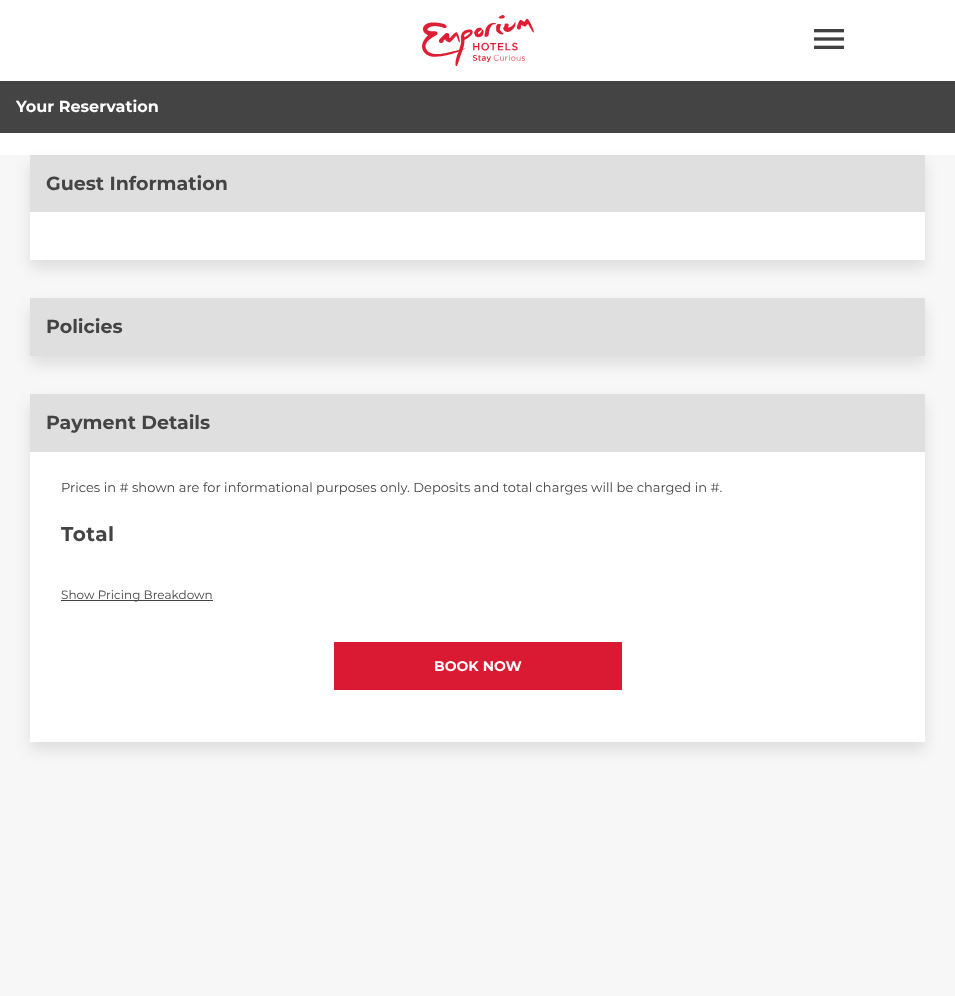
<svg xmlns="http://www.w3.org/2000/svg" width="955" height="996">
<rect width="100%" height="100%" fill="#fff"/>
<image x="422" y="15" width="112" height="51" href="media/1.png"/>
<image x="814" y="29" width="30" height="20" href="media/2.png"/>
<rect y="155" width="955" height="841" fill="#f7f7f7"/>
<rect y="81" width="955" height="52" fill="#444"/>
<text x="16" y="112" style="font-family:Montserrat;font-size:16px;font-weight:bold;fill:#fff">Your Reservation</text>
<rect x="30" y="163" width="895" height="105" fill="#0000001a" filter="blur(7.5px)"/>
<rect x="30" y="155" width="895" height="57" fill="#dfdfdf"/>
<text x="46" y="190" style="font-family:Montserrat;font-size:19px;font-weight:bold;fill:#444">Guest Information</text>
<rect x="30" y="212" width="895" height="48" fill="#fff"/>
<rect x="30" y="306" width="895" height="58" fill="#0000001a" filter="blur(7.5px)"/>
<rect x="30" y="298" width="895" height="58" fill="#dfdfdf"/>
<text x="46" y="333" style="font-family:Montserrat;font-size:19px;font-weight:bold;fill:#444">Policies</text>
<rect x="30" y="402" width="895" height="348" fill="#0000001a" filter="blur(7.5px)"/>
<rect x="30" y="394" width="895" height="58" fill="#dfdfdf"/>
<text x="46" y="429" style="font-family:Montserrat;font-size:19px;font-weight:bold;fill:#444">Payment Details</text>
<rect x="30" y="452" width="895" height="290" fill="#fff"/>
<text x="61" y="492" style="font-family:Montserrat;font-size:13px;letter-spacing:0.03px;fill:#444">Prices in # shown are for informational purposes only. Deposits and total charges will be charged in #.</text>
<text x="61" y="541" style="font-family:Montserrat;font-size:20px;font-weight:bold;letter-spacing:0.5px;fill:#444">Total</text>
<rect x="61" y="600" width="152" height="1" fill="#444"/>
<text x="61" y="599" style="font-family:Montserrat;font-size:12px;letter-spacing:0.03px;fill:#444">Show Pricing Breakdown</text>
<rect x="334" y="642" width="288" height="48" fill="#da1a32"/>
<text x="434" y="671" style="font-family:Montserrat;font-size:14px;font-weight:bold;fill:#fff">BOOK NOW</text>
</svg>
